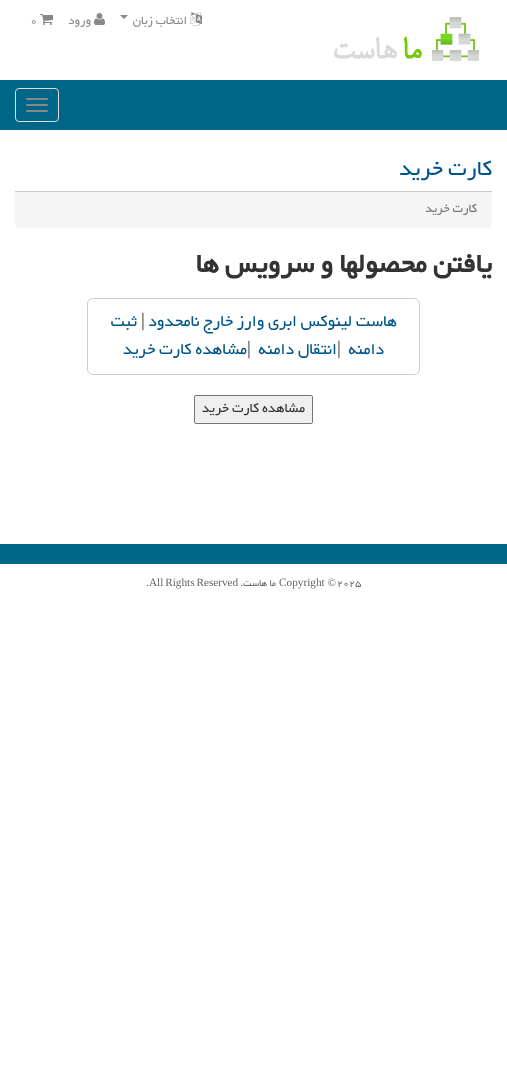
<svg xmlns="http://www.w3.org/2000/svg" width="507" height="1072">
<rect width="100%" height="100%" fill="#fff"/>
<image x="334" y="17" width="145" height="44" href="media/1.png"/>
<image x="190" y="12" width="12" height="14" href="media/2.png"/>
<text x="187" y="24" style="font-family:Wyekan;font-size:14px;direction:rtl;fill:#888">انتخاب زبان</text>
<path d="M120 15h8l-4 4z" fill="#888"/>
<image x="94" y="13" width="11" height="12" href="media/3.png"/>
<text x="91" y="24" style="font-family:Wyekan;font-size:14px;direction:rtl;fill:#888">ورود</text>
<image x="40" y="14" width="13" height="11" href="media/4.png"/>
<text x="30" y="24" style="font-family:Wyekan;font-size:14px;fill:#888">0</text>
<rect y="80" width="507" height="50" fill="#006687"/>
<rect x="15.5" y="88.5" width="43" height="33" rx="3.5" fill="none" stroke="#ddd"/>
<rect x="26" y="98" width="22" height="2" rx="1" fill="#888"/>
<rect x="26" y="104" width="22" height="2" rx="1" fill="#888"/>
<rect x="26" y="110" width="22" height="2" rx="1" fill="#888"/>
<rect x="15" y="191" width="477" height="1" fill="#ccc"/>
<text x="492" y="175" style="font-family:Wyekan;font-size:26px;direction:rtl;fill:#058">کارت خرید</text>
<path d="M15 192h477v32c0 2-2 4-4 4h-469c-2 0-4-2-4-4z" fill="#f5f5f5"/>
<text x="477" y="212" style="font-family:Wyekan;font-size:14.5px;direction:rtl;fill:#777">کارت خرید</text>
<text x="492" y="272" style="font-family:Wyekan;font-size:32px;font-weight:bold;direction:rtl;fill:#333">یافتن محصولها و سرویس ها</text>
<rect x="87.5" y="298.5" width="332" height="76" rx="5.5" fill="none" stroke="#ccc"/>
<text x="397" y="326" style="font-family:Wyekan;font-size:19.25px;direction:rtl;fill:#058">هاست لینوکس ابری وارز خارج نامحدود</text>
<text x="141" y="326" style="font-family:Liberation Serif;font-size:19.25px;fill:#333">|</text>
<text x="137" y="326" style="font-family:Wyekan;font-size:19.25px;direction:rtl;fill:#058">ثبت</text>
<text x="384" y="354" style="font-family:Wyekan;font-size:19.25px;direction:rtl;fill:#058">دامنه</text>
<text x="337" y="354" style="font-family:Liberation Serif;font-size:19.25px;fill:#333">|</text>
<text x="337" y="354" style="font-family:Wyekan;font-size:19.25px;direction:rtl;fill:#058">انتقال دامنه</text>
<text x="247" y="354" style="font-family:Liberation Serif;font-size:19.25px;fill:#333">|</text>
<text x="247" y="354" style="font-family:Wyekan;font-size:19.25px;direction:rtl;fill:#058">مشاهده کارت خرید</text>
<rect x="194.5" y="395.5" width="118" height="28" rx="1.5" fill="#efefef" stroke="#767676"/>
<text x="305" y="412" style="font-family:Wyekan;font-size:16px;direction:rtl;fill:#333">مشاهده کارت خرید</text>
<rect y="544" width="507" height="20" fill="#006687"/>
<text x="337" y="586" style="font-family:Wyekan;font-size:11.25px;fill:#666">2025</text>
<text x="279" y="586" style="font-family:Liberation Serif;font-size:11.25px;fill:#666">Copyright ©</text>
<text x="276" y="586" style="font-family:Wyekan;font-size:11.25px;direction:rtl;fill:#666">ما هاست.</text>
<text x="149" y="586" word-spacing="-1" style="font-family:Liberation Serif;font-size:11.25px;fill:#666">All Rights Reserved</text>
<text x="146" y="586" style="font-family:Wyekan;font-size:11.25px;fill:#666">.</text>
</svg>
